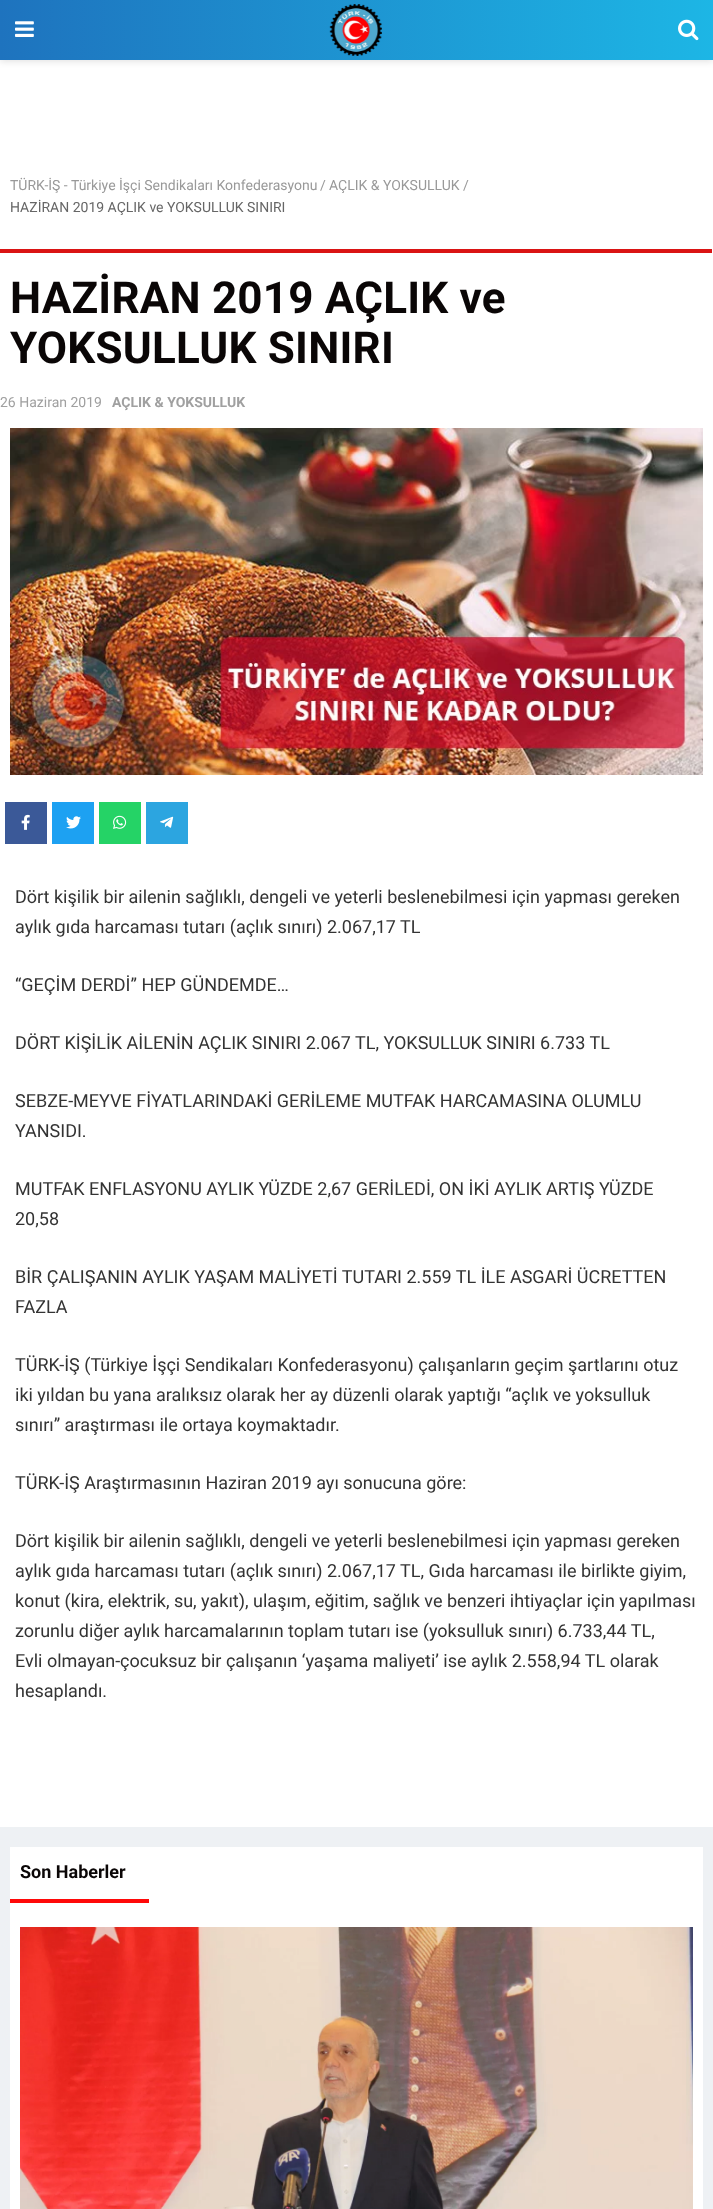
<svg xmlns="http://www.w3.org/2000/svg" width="713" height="2209">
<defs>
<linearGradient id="g1" gradientUnits="userSpaceOnUse" x1="0" y1="30" x2="713" y2="30"><stop offset="0" stop-color="#1e73be"/><stop offset="1" stop-color="#1db6e5"/></linearGradient>
</defs>
<rect width="100%" height="100%" fill="#fff"/>
<rect y="2" width="713" height="60" fill="#0000001a" filter="blur(3px)"/>
<rect width="713" height="60" fill="url(#g1)"/>
<image x="15" y="21" width="19" height="16" href="media/1.png"/>
<image x="329" y="4" width="53" height="52" href="media/2.png"/>
<image x="678" y="19" width="21" height="22" href="media/3.png"/>
<rect y="249" width="712" height="4" fill="#da1414"/>
<text x="10" y="190" style="font-family:Roboto;font-size:14px;fill:#999">TÜRK-İŞ - Türkiye İşçi Sendikaları Konfederasyonu</text>
<text x="320" y="190" style="font-family:Roboto;font-size:14px;fill:#999">/</text>
<text x="329" y="190" style="font-family:Roboto;font-size:14px;fill:#999">AÇLIK &amp; YOKSULLUK</text>
<text x="463" y="190" style="font-family:Roboto;font-size:14px;fill:#999">/</text>
<text x="10" y="212" style="font-family:Roboto;font-size:14px;fill:#666">HAZİRAN 2019 AÇLIK ve YOKSULLUK SINIRI</text>
<rect y="1827" width="713" height="382" fill="#eef1f4"/>
<text x="10" y="313" style="font-family:Roboto;font-size:44px;font-weight:bold;letter-spacing:0.2px;fill:#0a0606">HAZİRAN 2019 AÇLIK ve</text>
<text x="10" y="363" style="font-family:Roboto;font-size:44px;font-weight:bold;letter-spacing:0.2px;fill:#0a0606">YOKSULLUK SINIRI</text>
<text x="0" y="407" style="font-family:Roboto;font-size:14px;fill:#a0a0a0">26 Haziran 2019</text>
<text x="112" y="407" style="font-family:Roboto;font-size:14px;font-weight:bold;fill:#a0a0a0">AÇLIK &amp; YOKSULLUK</text>
<image x="10" y="428" width="693" height="347" href="media/4.png"/>
<rect x="5" y="802" width="42" height="42" fill="#3b5998"/>
<image x="21" y="814" width="9" height="16" href="media/5.png"/>
<rect x="52" y="802" width="42" height="42" fill="#1da1f2"/>
<image x="66" y="816" width="15" height="13" href="media/6.png"/>
<rect x="99" y="802" width="42" height="42" fill="#25d366"/>
<image x="113" y="815" width="14" height="14" href="media/7.png"/>
<rect x="146" y="802" width="42" height="42" fill="#2ca5e0"/>
<image x="160" y="816" width="14" height="12" href="media/8.png"/>
<text x="15" y="903" style="font-family:Roboto;font-size:18px;fill:#333">Dört kişilik bir ailenin sağlıklı, dengeli ve yeterli beslenebilmesi için yapması gereken</text>
<text x="15" y="933" style="font-family:Roboto;font-size:18px;fill:#333">aylık gıda harcaması tutarı (açlık sınırı) 2.067,17 TL</text>
<text x="15" y="991" style="font-family:Roboto;font-size:18px;fill:#333">“GEÇİM DERDİ” HEP GÜNDEMDE…</text>
<text x="15" y="1049" style="font-family:Roboto;font-size:18px;fill:#333">DÖRT KİŞİLİK AİLENİN AÇLIK SINIRI 2.067 TL, YOKSULLUK SINIRI 6.733 TL</text>
<text x="15" y="1107" style="font-family:Roboto;font-size:18px;fill:#333">SEBZE-MEYVE FİYATLARINDAKİ GERİLEME MUTFAK HARCAMASINA OLUMLU</text>
<text x="15" y="1137" style="font-family:Roboto;font-size:18px;fill:#333">YANSIDI.</text>
<text x="15" y="1195" style="font-family:Roboto;font-size:18px;fill:#333">MUTFAK ENFLASYONU AYLIK YÜZDE 2,67 GERİLEDİ, ON İKİ AYLIK ARTIŞ YÜZDE</text>
<text x="15" y="1225" style="font-family:Roboto;font-size:18px;fill:#333">20,58</text>
<text x="15" y="1283" style="font-family:Roboto;font-size:18px;fill:#333">BİR ÇALIŞANIN AYLIK YAŞAM MALİYETİ TUTARI 2.559 TL İLE ASGARİ ÜCRETTEN</text>
<text x="15" y="1313" style="font-family:Roboto;font-size:18px;fill:#333">FAZLA</text>
<text x="15" y="1371" style="font-family:Roboto;font-size:18px;fill:#333">TÜRK-İŞ (Türkiye İşçi Sendikaları Konfederasyonu) çalışanların geçim şartlarını otuz</text>
<text x="15" y="1401" style="font-family:Roboto;font-size:18px;fill:#333">iki yıldan bu yana aralıksız olarak her ay düzenli olarak yaptığı “açlık ve yoksulluk</text>
<text x="15" y="1431" style="font-family:Roboto;font-size:18px;fill:#333">sınırı” araştırması ile ortaya koymaktadır.</text>
<text x="15" y="1489" style="font-family:Roboto;font-size:18px;fill:#333">TÜRK-İŞ Araştırmasının Haziran 2019 ayı sonucuna göre:</text>
<text x="15" y="1547" style="font-family:Roboto;font-size:18px;fill:#333">Dört kişilik bir ailenin sağlıklı, dengeli ve yeterli beslenebilmesi için yapması gereken</text>
<text x="15" y="1577" style="font-family:Roboto;font-size:18px;fill:#333">aylık gıda harcaması tutarı (açlık sınırı) 2.067,17 TL, Gıda harcaması ile birlikte giyim,</text>
<text x="15" y="1607" style="font-family:Roboto;font-size:18px;fill:#333">konut (kira, elektrik, su, yakıt), ulaşım, eğitim, sağlık ve benzeri ihtiyaçlar için yapılması</text>
<text x="15" y="1637" style="font-family:Roboto;font-size:18px;fill:#333">zorunlu diğer aylık harcamalarının toplam tutarı ise (yoksulluk sınırı) 6.733,44 TL,</text>
<text x="15" y="1667" style="font-family:Roboto;font-size:18px;fill:#333">Evli olmayan-çocuksuz bir çalışanın ‘yaşama maliyeti’ ise aylık 2.558,94 TL olarak</text>
<text x="15" y="1697" style="font-family:Roboto;font-size:18px;fill:#333">hesaplandı.</text>
<rect x="10" y="1847" width="693" height="362" fill="#fff"/>
<text x="20" y="1878" style="font-family:Roboto;font-size:18px;font-weight:bold;fill:#0a0606">Son Haberler</text>
<rect x="10" y="1899" width="139" height="4" fill="#ff0909"/>
<image x="20" y="1927" width="673" height="282" href="media/9.png"/>
</svg>
